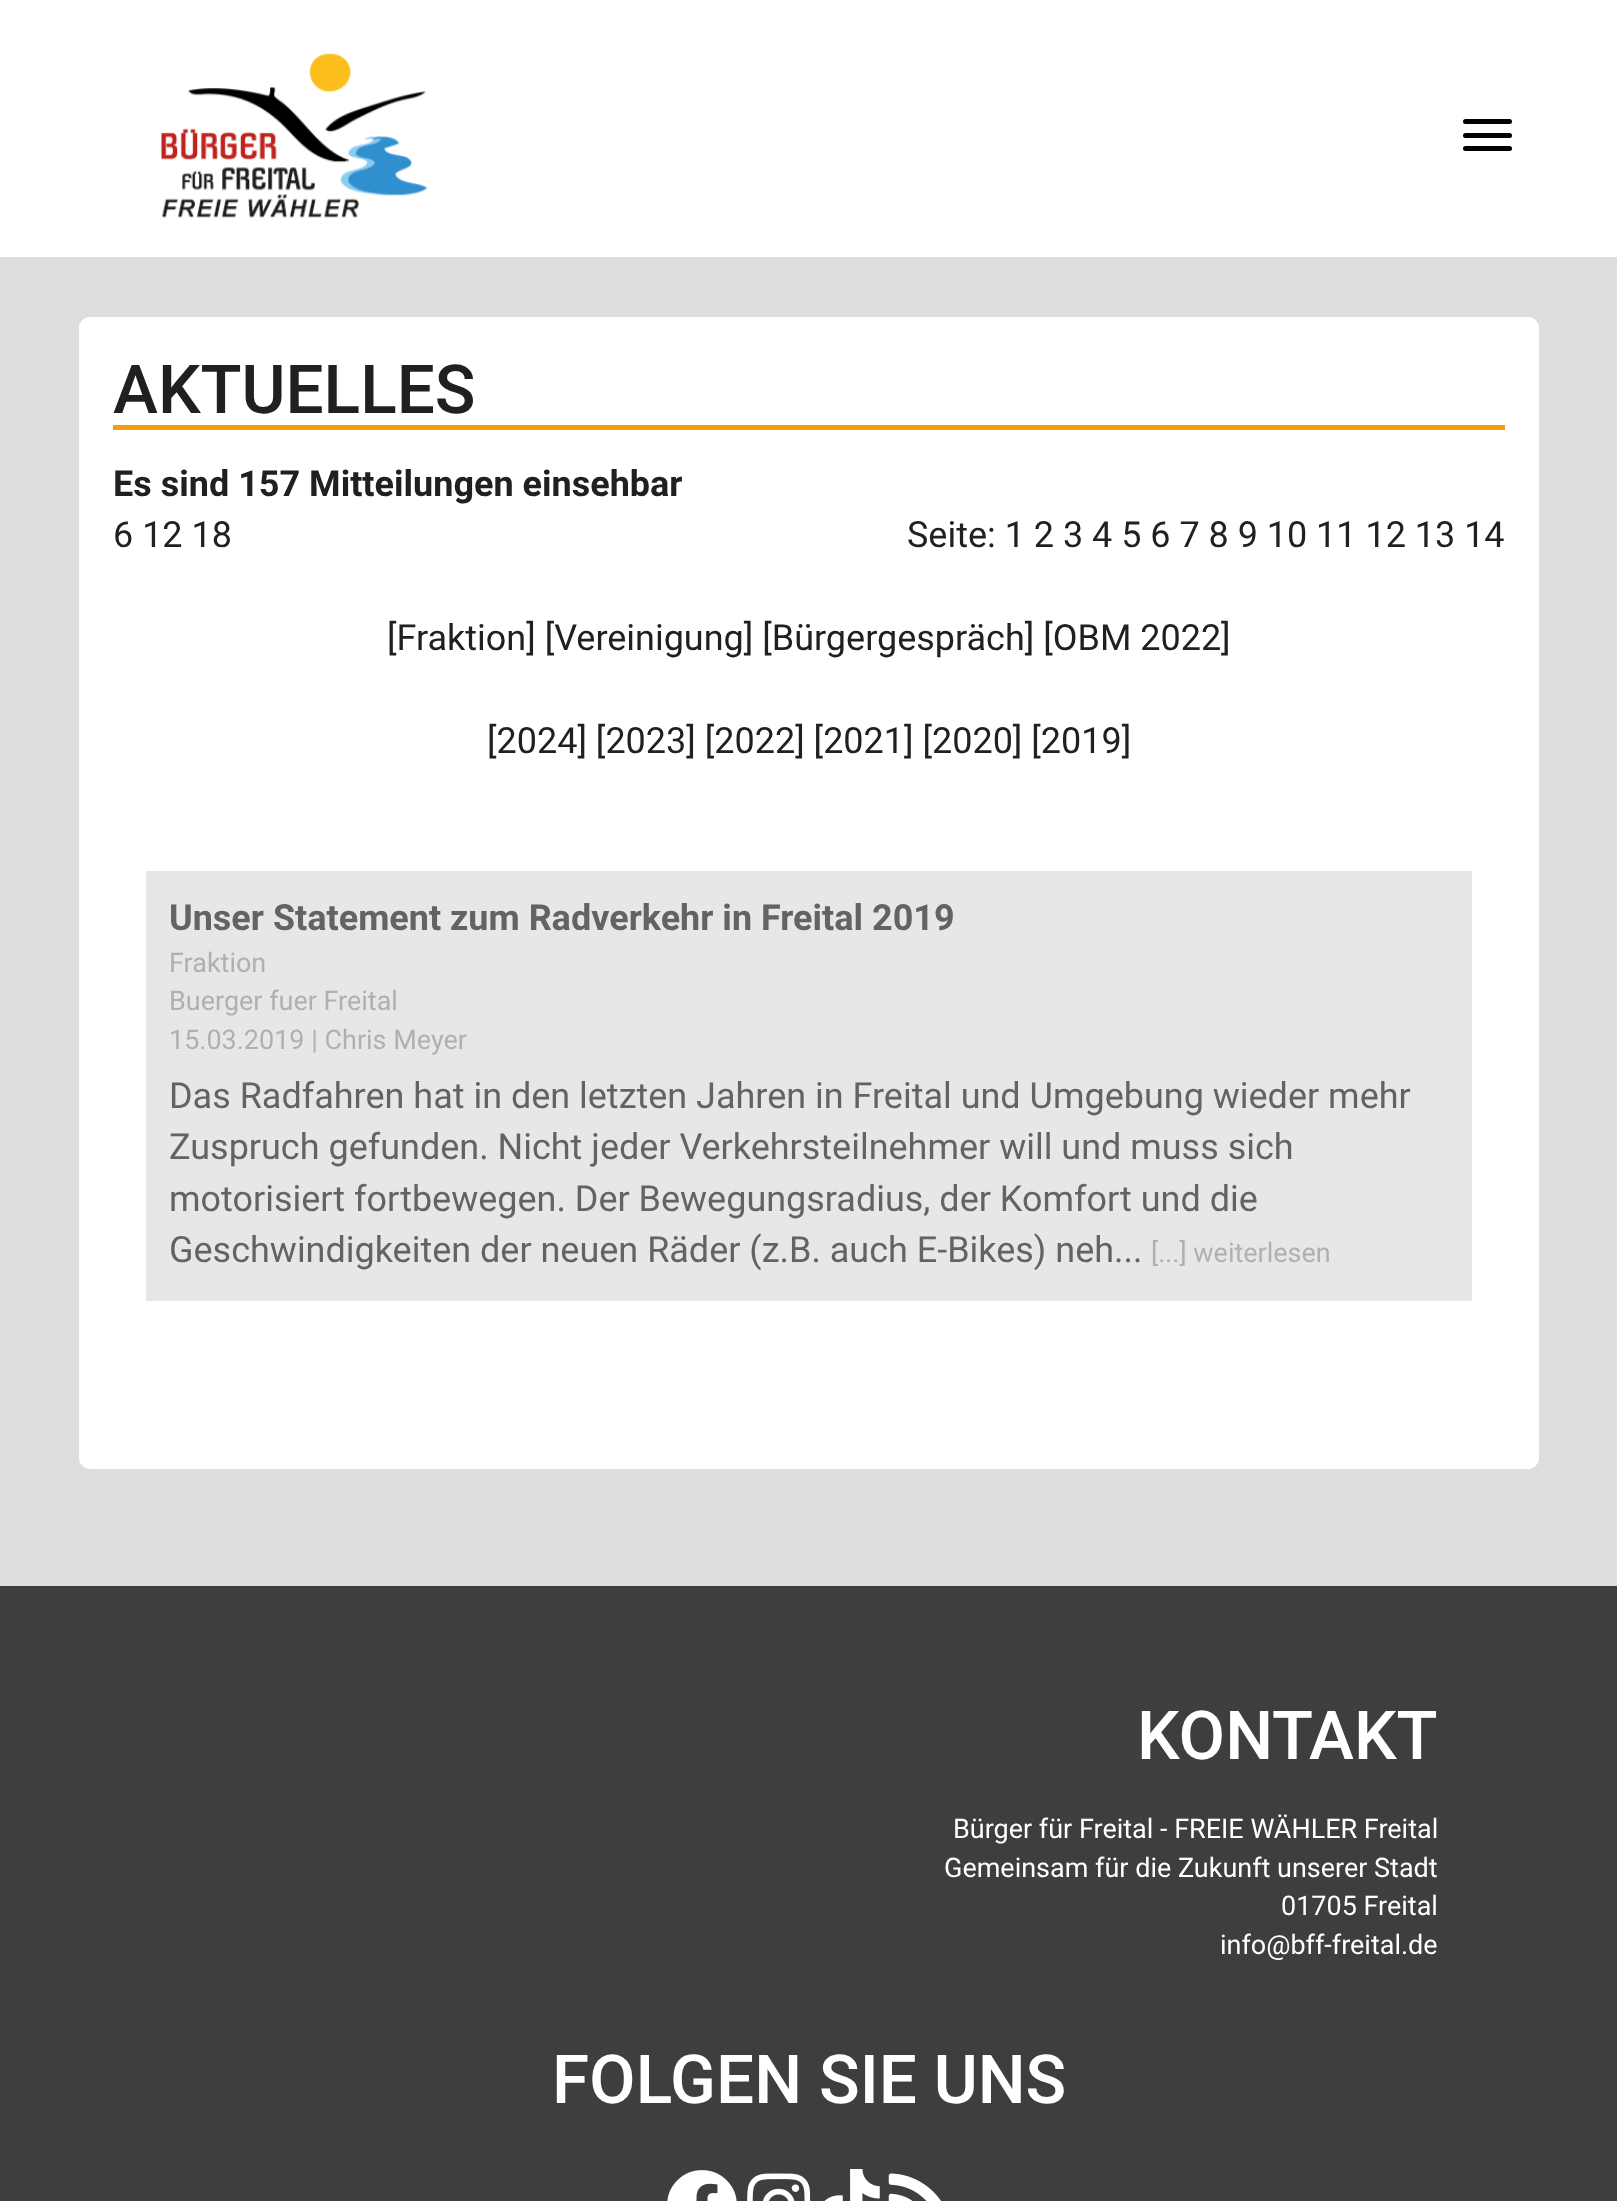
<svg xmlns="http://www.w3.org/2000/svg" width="1617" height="2201">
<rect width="100%" height="100%" fill="#ddd"/>
<rect width="1617" height="257" fill="#fff"/>
<image x="161" y="53" width="266" height="165" href="media/1.png"/>
<rect x="1463" y="119" width="49" height="5" rx="2.5" fill="#000"/>
<rect x="1463" y="133" width="49" height="5" rx="2.5" fill="#000"/>
<rect x="1463" y="146" width="49" height="5" rx="2.5" fill="#000"/>
<rect x="79" y="317" width="1460" height="1152" rx="11" fill="#fff"/>
<text x="113" y="413" style="font-family:Roboto;font-size:67.5px;font-weight:500;fill:#202020">AKTUELLES</text>
<rect x="113" y="425" width="1392" height="5" fill="#f49c0c"/>
<text x="113" y="496" style="font-family:Roboto;font-size:36px;font-weight:bold;fill:#202020">Es sind 157 Mitteilungen einsehbar</text>
<text x="113" y="547" style="font-family:Roboto;font-size:36px;fill:#202020">6 12 18</text>
<text x="907" y="547" style="font-family:Roboto;font-size:36px;fill:#202020">Seite: 1 2 3 4 5 6 7 8 9 10 11 12 13 14</text>
<text x="387" y="650" style="font-family:Roboto;font-size:36px;fill:#202020">[Fraktion] [Vereinigung] [Bürgergespräch] [OBM 2022]</text>
<text x="487" y="753" style="font-family:Roboto;font-size:36px;fill:#202020">[2024] [2023] [2022] [2021] [2020] [2019]</text>
<rect x="146" y="871" width="1326" height="430" fill="#e7e7e7"/>
<text x="169" y="930" style="font-family:Roboto;font-size:36px;font-weight:bold;fill:#636363">Unser Statement zum Radverkehr in Freital 2019</text>
<text x="169" y="972" style="font-family:Roboto;font-size:27px;fill:#b0b0b0">Fraktion</text>
<text x="169" y="1010" style="font-family:Roboto;font-size:27px;fill:#b0b0b0">Buerger fuer Freital</text>
<text x="169" y="1049" style="font-family:Roboto;font-size:27px;fill:#b0b0b0">15.03.2019 | Chris Meyer</text>
<text x="169" y="1108" style="font-family:Roboto;font-size:36px;fill:#636363">Das Radfahren hat in den letzten Jahren in Freital und Umgebung wieder mehr</text>
<text x="169" y="1159" style="font-family:Roboto;font-size:36px;fill:#636363">Zuspruch gefunden. Nicht jeder Verkehrsteilnehmer will und muss sich</text>
<text x="169" y="1211" style="font-family:Roboto;font-size:36px;fill:#636363">motorisiert fortbewegen. Der Bewegungsradius, der Komfort und die</text>
<text x="169" y="1262" style="font-family:Roboto;font-size:36px;fill:#636363">Geschwindigkeiten der neuen Räder (z.B. auch E-Bikes) neh...</text>
<text x="1151" y="1262" style="font-family:Roboto;font-size:27px;fill:#b0b0b0">[...] weiterlesen</text>
<rect y="1586" width="1617" height="615" fill="#3e3e3e"/>
<text x="1137" y="1759" style="font-family:Roboto;font-size:67.5px;font-weight:500;fill:#fff">KONTAKT</text>
<text x="953" y="1838" style="font-family:Roboto;font-size:27px;fill:#fff">Bürger für Freital - FREIE WÄHLER Freital</text>
<text x="944" y="1877" style="font-family:Roboto;font-size:27px;fill:#fff">Gemeinsam für die Zukunft unserer Stadt</text>
<text x="1281" y="1915" style="font-family:Roboto;font-size:27px;fill:#fff">01705 Freital</text>
<text x="1220" y="1954" style="font-family:Roboto;font-size:27px;fill:#fff">info@bff-freital.de</text>
<text x="552" y="2103" style="font-family:Roboto;font-size:67.5px;font-weight:500;fill:#fff">FOLGEN SIE UNS</text>
<image x="667" y="2170" width="70" height="31" href="media/2.png"/>
<image x="747" y="2173" width="64" height="28" href="media/3.png"/>
<image x="824" y="2169" width="56" height="32" href="media/4.png"/>
<image x="888" y="2173" width="53" height="28" href="media/5.png"/>
</svg>
